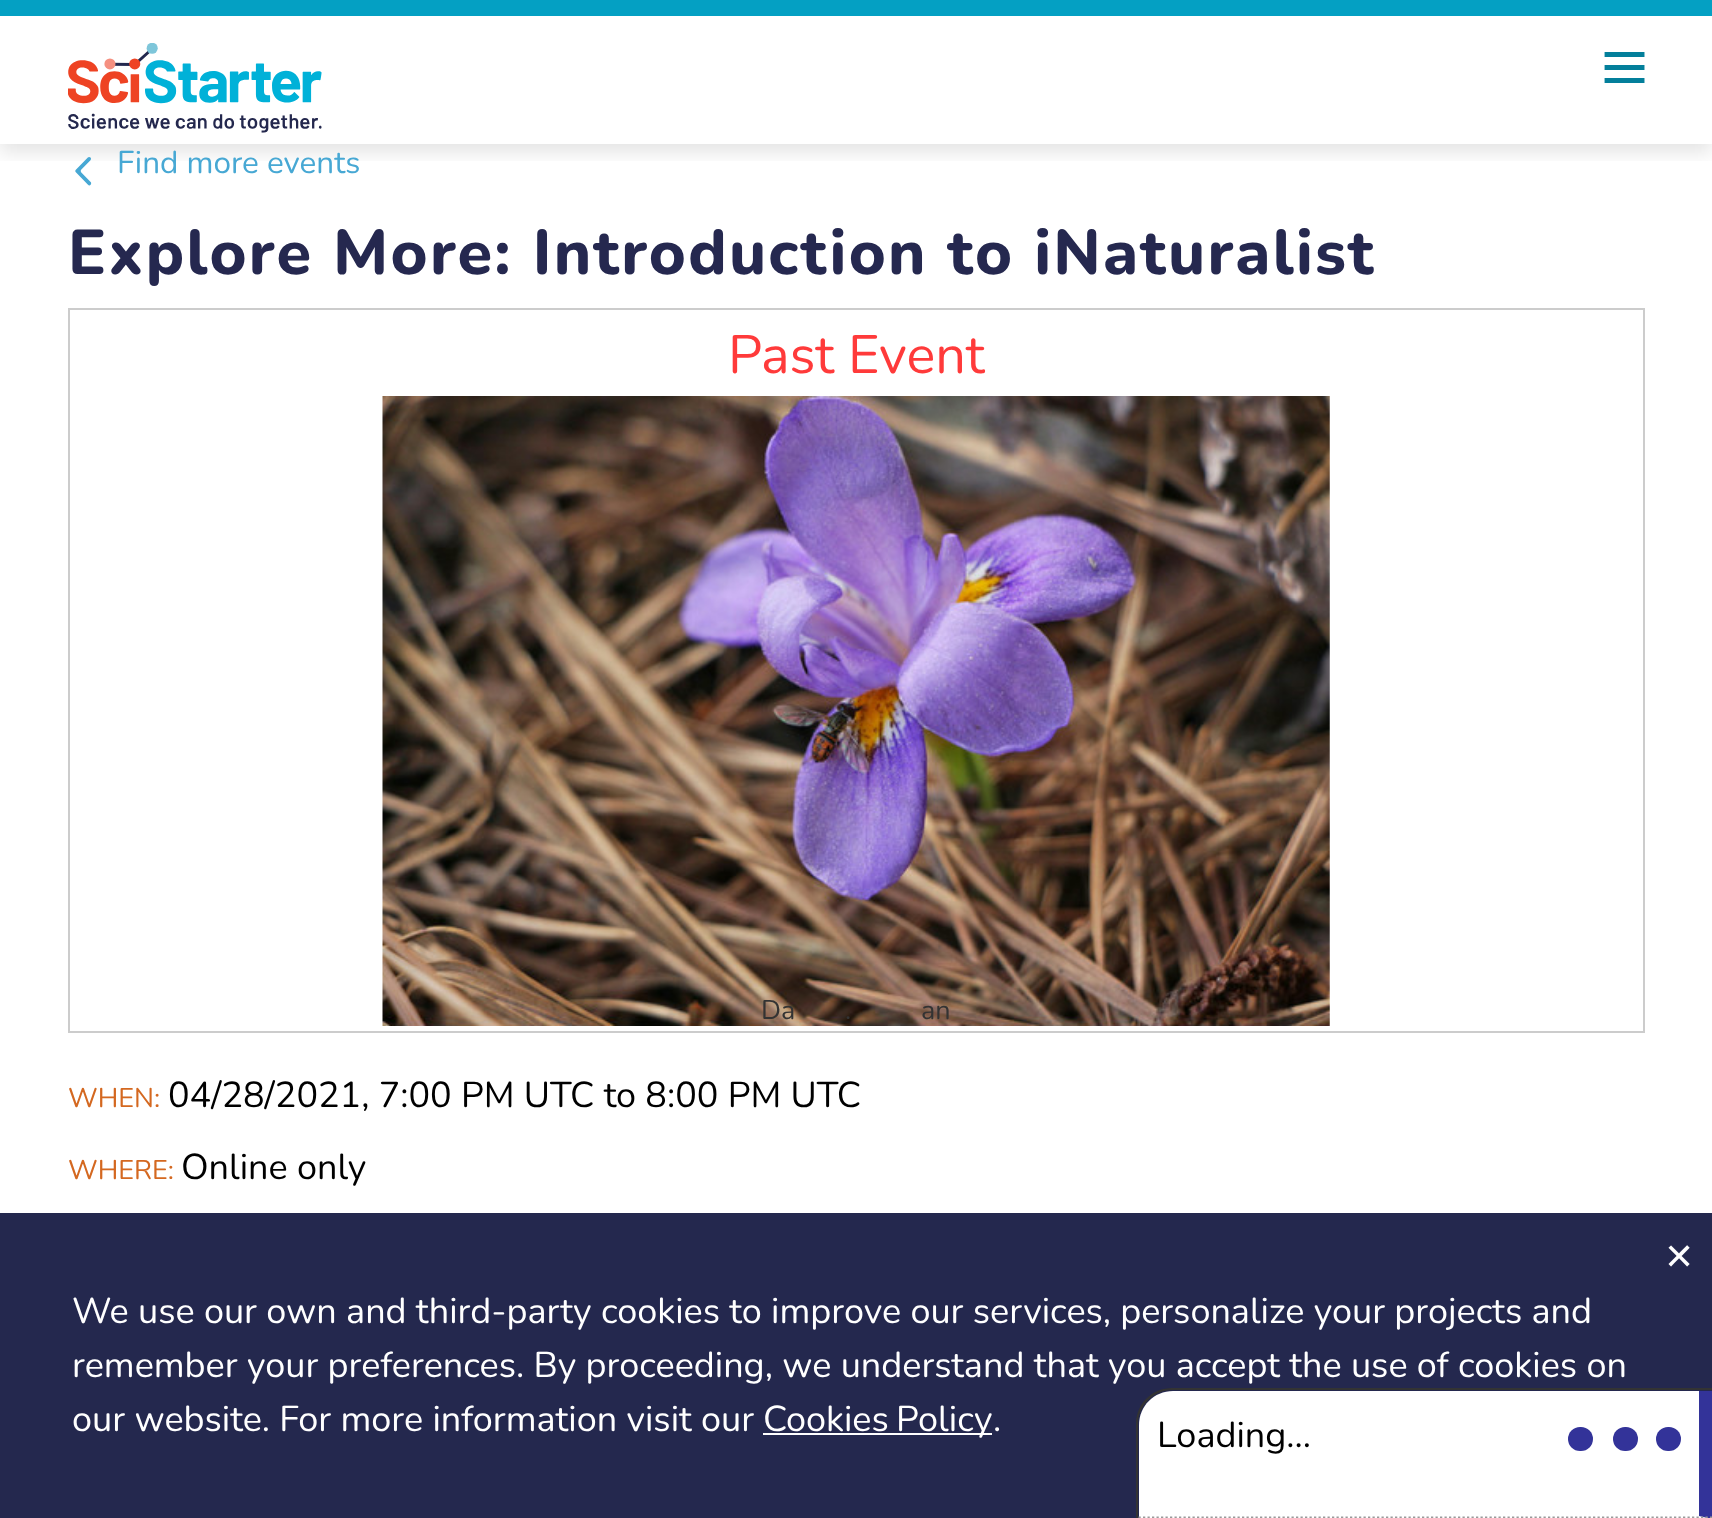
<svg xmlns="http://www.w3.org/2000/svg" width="1712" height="1518">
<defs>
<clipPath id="clip1"><rect x="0" y="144" width="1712" height="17"/></clipPath>
</defs>
<rect width="100%" height="100%" fill="#fff"/>
<g clip-path="url(#clip1)">
<rect y="9" width="1712" height="144" fill="#0000001a" filter="blur(9px)"/>
</g>
<rect width="1712" height="16" fill="#04a0c3"/>
<image x="68" y="43" width="254" height="90" href="media/1.png"/>
<image x="1604" y="52" width="41" height="31" href="media/2.png"/>
<image x="75" y="157" width="17" height="29" href="media/3.png"/>
<text x="117" y="173" style="font-family:Nunito;font-size:31.5px;fill:#47a8d4">Find more events</text>
<text x="68" y="274" style="font-family:Nunito;font-size:63px;font-weight:800;letter-spacing:2.25px;fill:#25284f">Explore More: Introduction to iNaturalist</text>
<rect x="69" y="309" width="1575" height="723" fill="none" stroke="#ccc" stroke-width="2"/>
<text x="728" y="373" style="font-family:Nunito;font-size:54px;fill:#ff3a3a">Past Event</text>
<image x="382" y="396" width="948" height="630" href="media/4.png"/>
<text x="761" y="1019" style="font-family:Nunito;font-size:27px;fill:#333">Da</text>
<text x="845" y="1019" style="font-family:Nunito;font-size:27px;fill:#333">.</text>
<text x="921" y="1019" style="font-family:Nunito;font-size:27px;fill:#333">an</text>
<text x="68" y="1107" style="font-family:Nunito;font-size:27px;fill:#d46820">WHEN:</text>
<text x="168" y="1107" style="font-family:Nunito;font-size:36px;fill:#000">04/28/2021, 7:00 PM UTC to 8:00 PM UTC</text>
<text x="68" y="1179" style="font-family:Nunito;font-size:27px;fill:#d46820">WHERE:</text>
<text x="181" y="1179" style="font-family:Nunito;font-size:36px;fill:#000">Online only</text>
<rect y="1213" width="1712" height="305" fill="#24284e"/>
<text x="1664" y="1269" style="font-family:DejaVu Sans;font-size:36px;fill:#fff">✕</text>
<text x="72" y="1323" style="font-family:Nunito;font-size:36px;fill:#fff">We use our own and third-party cookies to improve our services, personalize your projects and</text>
<text x="72" y="1377" style="font-family:Nunito;font-size:36px;fill:#fff">remember your preferences. By proceeding, we understand that you accept the use of cookies on</text>
<text x="72" y="1431" style="font-family:Nunito;font-size:36px;fill:#fff">our website. For more information visit our</text>
<rect x="763" y="1433" width="229" height="2" fill="#fff"/>
<text x="763" y="1431" word-spacing="-2" style="font-family:Nunito;font-size:36px;fill:#fff">Cookies Policy</text>
<text x="993" y="1431" style="font-family:Nunito;font-size:36px;fill:#fff">.</text>
<path d="M1173 1391h539v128h-573v-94c0-19 15-34 34-34z" fill="#fff"/>
<path d="M1172 1388h540v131h-576v-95c0-20 16-36 36-36zm0 2h540v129h-574v-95c0-18 16-34 34-34z" fill="#333" fill-rule="evenodd"/>
<path d="M1712 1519v-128h-13v125z" fill="#339"/>
<path d="M1138.5 1517.5h573.5" fill="none" stroke="#999" stroke-width="2.2" stroke-dasharray="2.25 2.25"/>
<text x="1157" y="1447" style="font-family:Nunito;font-size:36px;fill:#000">Loading...</text>
<rect x="1568" y="1427" width="25" height="24" rx="12" fill="#339"/>
<rect x="1613" y="1427" width="25" height="24" rx="12" fill="#339"/>
<rect x="1656" y="1427" width="25" height="24" rx="12" fill="#339"/>
</svg>
